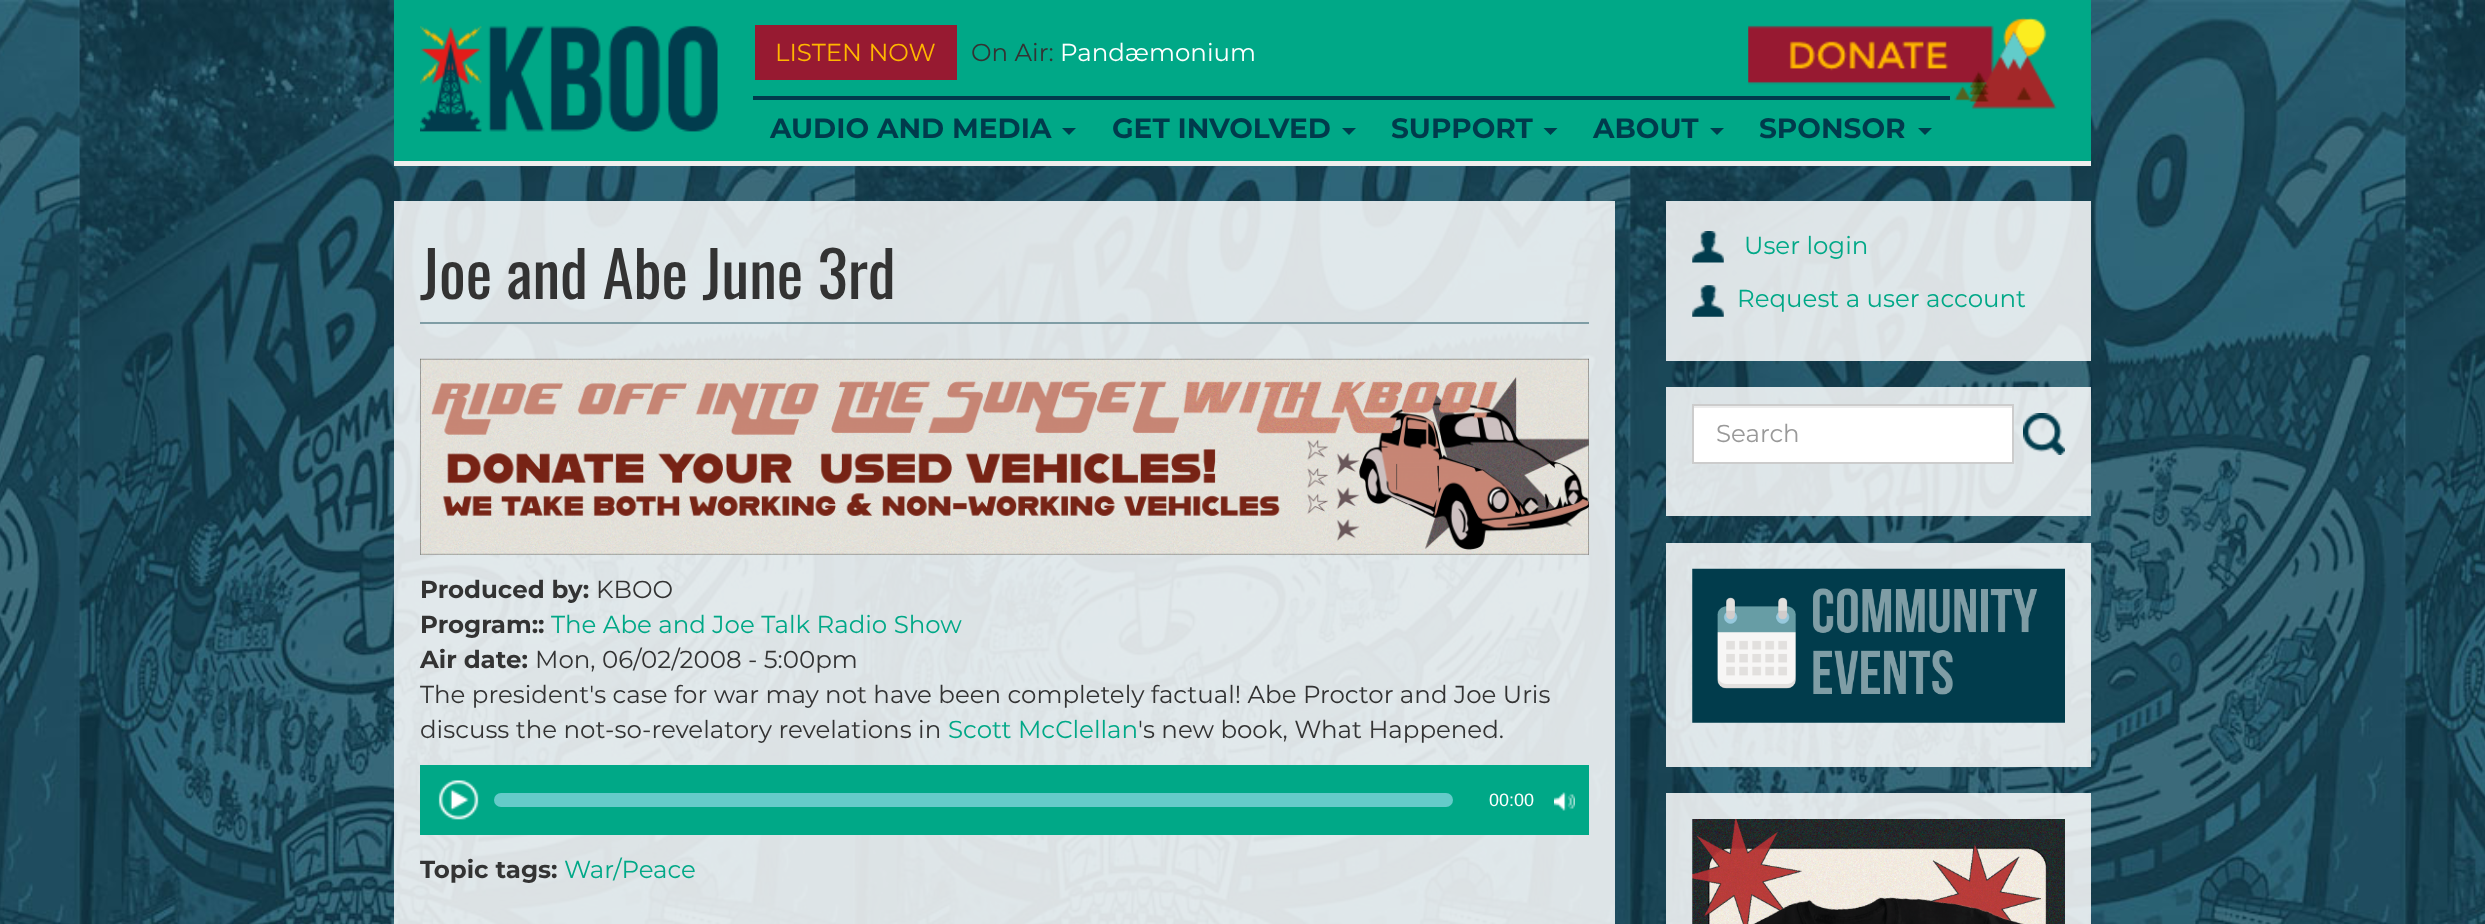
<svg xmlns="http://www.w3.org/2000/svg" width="2485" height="924">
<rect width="100%" height="100%" fill="#fff"/>
<image x="0" y="0" width="2485" height="924" href="media/1.png"/>
<rect x="394" width="1697" height="161" fill="#00a887"/>
<rect x="394" y="161" width="1697" height="5" fill="#eee"/>
<image x="420" y="25" width="298" height="107" href="media/2.png"/>
<rect x="755" y="25" width="202" height="55" fill="#971a31"/>
<text x="775" y="61" style="font-family:Montserrat;font-size:24.5px;fill:#ffb600">LISTEN NOW</text>
<text x="971" y="61" style="font-family:Montserrat;font-size:24.5px;fill:#333">On Air:</text>
<text x="1060" y="61" style="font-family:Montserrat;font-size:24.5px;fill:#fff">Pandæmonium</text>
<rect x="753" y="96" width="1197" height="4" fill="#003b4c"/>
<image x="1748" y="17" width="309" height="92" href="media/3.png"/>
<text x="770" y="138" style="font-family:Montserrat;font-size:28px;font-weight:bold;fill:#003b4c">AUDIO AND MEDIA</text>
<path d="M1062 128h14l-7 7z" fill="#003b4c"/>
<text x="1112" y="138" style="font-family:Montserrat;font-size:28px;font-weight:bold;fill:#003b4c">GET INVOLVED</text>
<path d="M1342 128h14l-7 7z" fill="#003b4c"/>
<text x="1391" y="138" style="font-family:Montserrat;font-size:28px;font-weight:bold;fill:#003b4c">SUPPORT</text>
<path d="M1543.5 128h14l-7 7z" fill="#003b4c"/>
<text x="1593" y="138" style="font-family:Montserrat;font-size:28px;font-weight:bold;fill:#003b4c">ABOUT</text>
<path d="M1710 128h14l-7 7z" fill="#003b4c"/>
<text x="1759" y="138" style="font-family:Montserrat;font-size:28px;font-weight:bold;fill:#003b4c">SPONSOR</text>
<path d="M1918 128h14l-7 7z" fill="#003b4c"/>
<rect x="394" y="201" width="1221" height="723" fill="#ffffffd9"/>
<rect x="420" y="322" width="1169" height="2" fill="#7f9da5"/>
<text x="420" y="299" style="font-family:Oswald;font-size:63px;fill:#333">Joe and Abe June 3rd</text>
<image x="420" y="358" width="1169" height="197" href="media/4.png"/>
<text x="420" y="598" style="font-family:Montserrat;font-size:24.5px;font-weight:bold;fill:#333">Produced by:</text>
<text x="596" y="598" style="font-family:Montserrat;font-size:24.5px;fill:#333">KBOO</text>
<text x="420" y="633" style="font-family:Montserrat;font-size:24.5px;font-weight:bold;fill:#333">Program::</text>
<text x="551" y="633" style="font-family:Montserrat;font-size:24.5px;fill:#00a887">The Abe and Joe Talk Radio Show</text>
<text x="420" y="668" style="font-family:Montserrat;font-size:24.5px;font-weight:bold;fill:#333">Air date:</text>
<text x="535" y="668" style="font-family:Montserrat;font-size:24.5px;fill:#333">Mon, 06/02/2008 - 5:00pm</text>
<text x="420" y="703" style="font-family:Montserrat;font-size:24.5px;fill:#333">The president's case for war may not have been completely factual! Abe Proctor and Joe Uris</text>
<text x="420" y="738" style="font-family:Montserrat;font-size:24.5px;fill:#333">discuss the not-so-revelatory revelations in</text>
<text x="948" y="738" style="font-family:Montserrat;font-size:24.5px;fill:#00a887">Scott McClellan</text>
<text x="1138" y="738" style="font-family:Montserrat;font-size:24.5px;fill:#333">'s new book, What Happened.</text>
<rect x="420" y="765" width="1169" height="70" fill="#00a887"/>
<image x="438" y="780" width="41" height="40" href="media/5.png"/>
<image x="1554" y="792" width="21" height="19" href="media/6.png"/>
<rect x="494" y="793" width="959" height="14" rx="7" fill="#65cbc9"/>
<text x="1489" y="806" style="font-family:Liberation Sans;font-size:18px;fill:#fff">00:00</text>
<text x="420" y="878" style="font-family:Montserrat;font-size:24.5px;font-weight:bold;fill:#333">Topic tags:</text>
<text x="564" y="878" style="font-family:Montserrat;font-size:24.5px;fill:#00a887">War/Peace</text>
<rect x="1666" y="201" width="425" height="160" fill="#ffffffd9"/>
<image x="1692" y="231" width="32" height="32" href="media/7.png"/>
<text x="1744" y="254" style="font-family:Montserrat;font-size:24.5px;fill:#00a887">User login</text>
<image x="1692" y="285" width="32" height="32" href="media/8.png"/>
<text x="1737" y="307" style="font-family:Montserrat;font-size:24.5px;fill:#00a887">Request a user account</text>
<rect x="1666" y="387" width="425" height="129" fill="#ffffffd9"/>
<rect x="1694" y="408" width="318" height="54" fill="#fff"/>
<rect x="1694" y="406" width="319" height="2" fill="#ececec"/>
<rect x="1693" y="405" width="320" height="58" fill="none" stroke="#ccc" stroke-width="2"/>
<text x="1716" y="442" style="font-family:Montserrat;font-size:24.5px;fill:#999">Search</text>
<image x="2023" y="413" width="42" height="42" href="media/9.png"/>
<rect x="1666" y="543" width="425" height="224" fill="#ffffffd9"/>
<image x="1692" y="568" width="373" height="155" href="media/10.png"/>
<rect x="1666" y="793" width="425" height="131" fill="#ffffffd9"/>
<image x="1692" y="819" width="373" height="105" href="media/11.png"/>
</svg>
